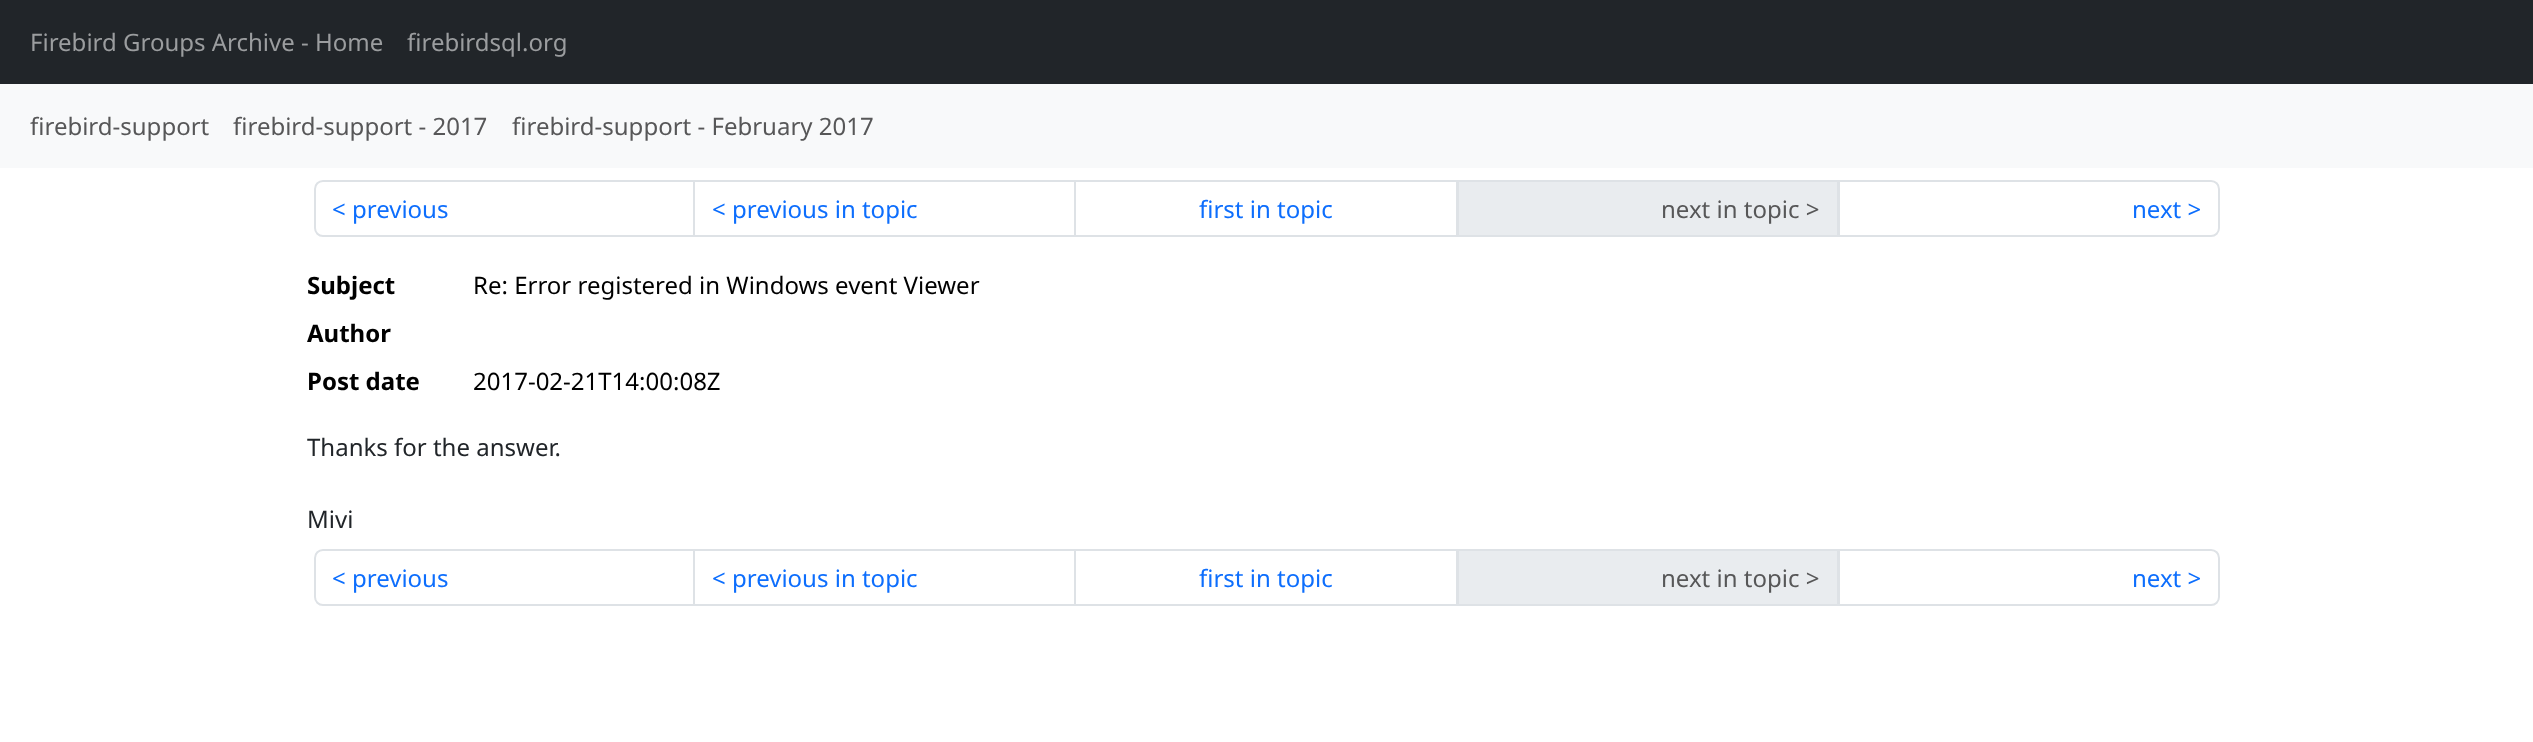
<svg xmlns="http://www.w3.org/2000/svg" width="2533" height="742">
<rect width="100%" height="100%" fill="#fff"/>
<rect width="2533" height="84" fill="#212529"/>
<text x="30" y="51" style="font-family:Noto Sans;font-size:24px;fill:#9b9d9f">Firebird Groups Archive - Home</text>
<text x="407" y="51" style="font-family:Noto Sans;font-size:24px;fill:#9b9d9f">firebirdsql.org</text>
<rect y="84" width="2533" height="84" fill="#f8f9fa"/>
<text x="30" y="135" style="font-family:Noto Sans;font-size:24px;fill:#575758">firebird-support</text>
<text x="233" y="135" style="font-family:Noto Sans;font-size:24px;fill:#575758">firebird-support - 2017</text>
<text x="512" y="135" style="font-family:Noto Sans;font-size:24px;fill:#575758">firebird-support - February 2017</text>
<path d="M323 181h371v55h-371c-4.5 0-8-3.5-8-8v-39c0-4.5 3.5-8 8-8z" fill="none" stroke="#dee2e6" stroke-width="2"/>
<text x="332" y="218" style="font-family:Noto Sans;font-size:24px;fill:#0d6efd">&lt; previous</text>
<rect x="694" y="181" width="381" height="55" fill="none" stroke="#dee2e6" stroke-width="2"/>
<text x="712" y="218" style="font-family:Noto Sans;font-size:24px;fill:#0d6efd">&lt; previous in topic</text>
<rect x="1075" y="181" width="382" height="55" fill="none" stroke="#dee2e6" stroke-width="2"/>
<text x="1199" y="218" style="font-family:Noto Sans;font-size:24px;fill:#0d6efd">first in topic</text>
<rect x="1458" y="181" width="380" height="55" fill="#e9ecef" stroke="#dee2e6" stroke-width="2"/>
<text x="1661" y="218" style="font-family:Noto Sans;font-size:24px;fill:#575758">next in topic &gt;</text>
<path d="M1839 181h372c4.5 0 8 3.5 8 8v39c0 4.5-3.5 8-8 8h-372z" fill="#fff" stroke="#dee2e6" stroke-width="2"/>
<text x="2132" y="218" style="font-family:Noto Sans;font-size:24px;fill:#0d6efd">next &gt;</text>
<text x="307" y="294" style="font-family:Noto Sans;font-size:24px;font-weight:bold;fill:#000">Subject</text>
<text x="473" y="294" style="font-family:Noto Sans;font-size:24px;fill:#000">Re: Error registered in Windows event Viewer</text>
<text x="307" y="342" style="font-family:Noto Sans;font-size:24px;font-weight:bold;fill:#000">Author</text>
<text x="307" y="390" style="font-family:Noto Sans;font-size:24px;font-weight:bold;fill:#000">Post date</text>
<text x="473" y="390" style="font-family:Noto Sans;font-size:24px;fill:#000">2017-02-21T14:00:08Z</text>
<text x="307" y="456" style="font-family:Noto Sans;font-size:24px;fill:#212529">Thanks for the answer.</text>
<text x="307" y="528" style="font-family:Noto Sans;font-size:24px;fill:#212529">Mivi</text>
<path d="M323 550h371v55h-371c-4.5 0-8-3.5-8-8v-39c0-4.5 3.5-8 8-8z" fill="none" stroke="#dee2e6" stroke-width="2"/>
<text x="332" y="587" style="font-family:Noto Sans;font-size:24px;fill:#0d6efd">&lt; previous</text>
<rect x="694" y="550" width="381" height="55" fill="none" stroke="#dee2e6" stroke-width="2"/>
<text x="712" y="587" style="font-family:Noto Sans;font-size:24px;fill:#0d6efd">&lt; previous in topic</text>
<rect x="1075" y="550" width="382" height="55" fill="none" stroke="#dee2e6" stroke-width="2"/>
<text x="1199" y="587" style="font-family:Noto Sans;font-size:24px;fill:#0d6efd">first in topic</text>
<rect x="1458" y="550" width="380" height="55" fill="#e9ecef" stroke="#dee2e6" stroke-width="2"/>
<text x="1661" y="587" style="font-family:Noto Sans;font-size:24px;fill:#575758">next in topic &gt;</text>
<path d="M1839 550h372c4.5 0 8 3.5 8 8v39c0 4.5-3.5 8-8 8h-372z" fill="#fff" stroke="#dee2e6" stroke-width="2"/>
<text x="2132" y="587" style="font-family:Noto Sans;font-size:24px;fill:#0d6efd">next &gt;</text>
</svg>
